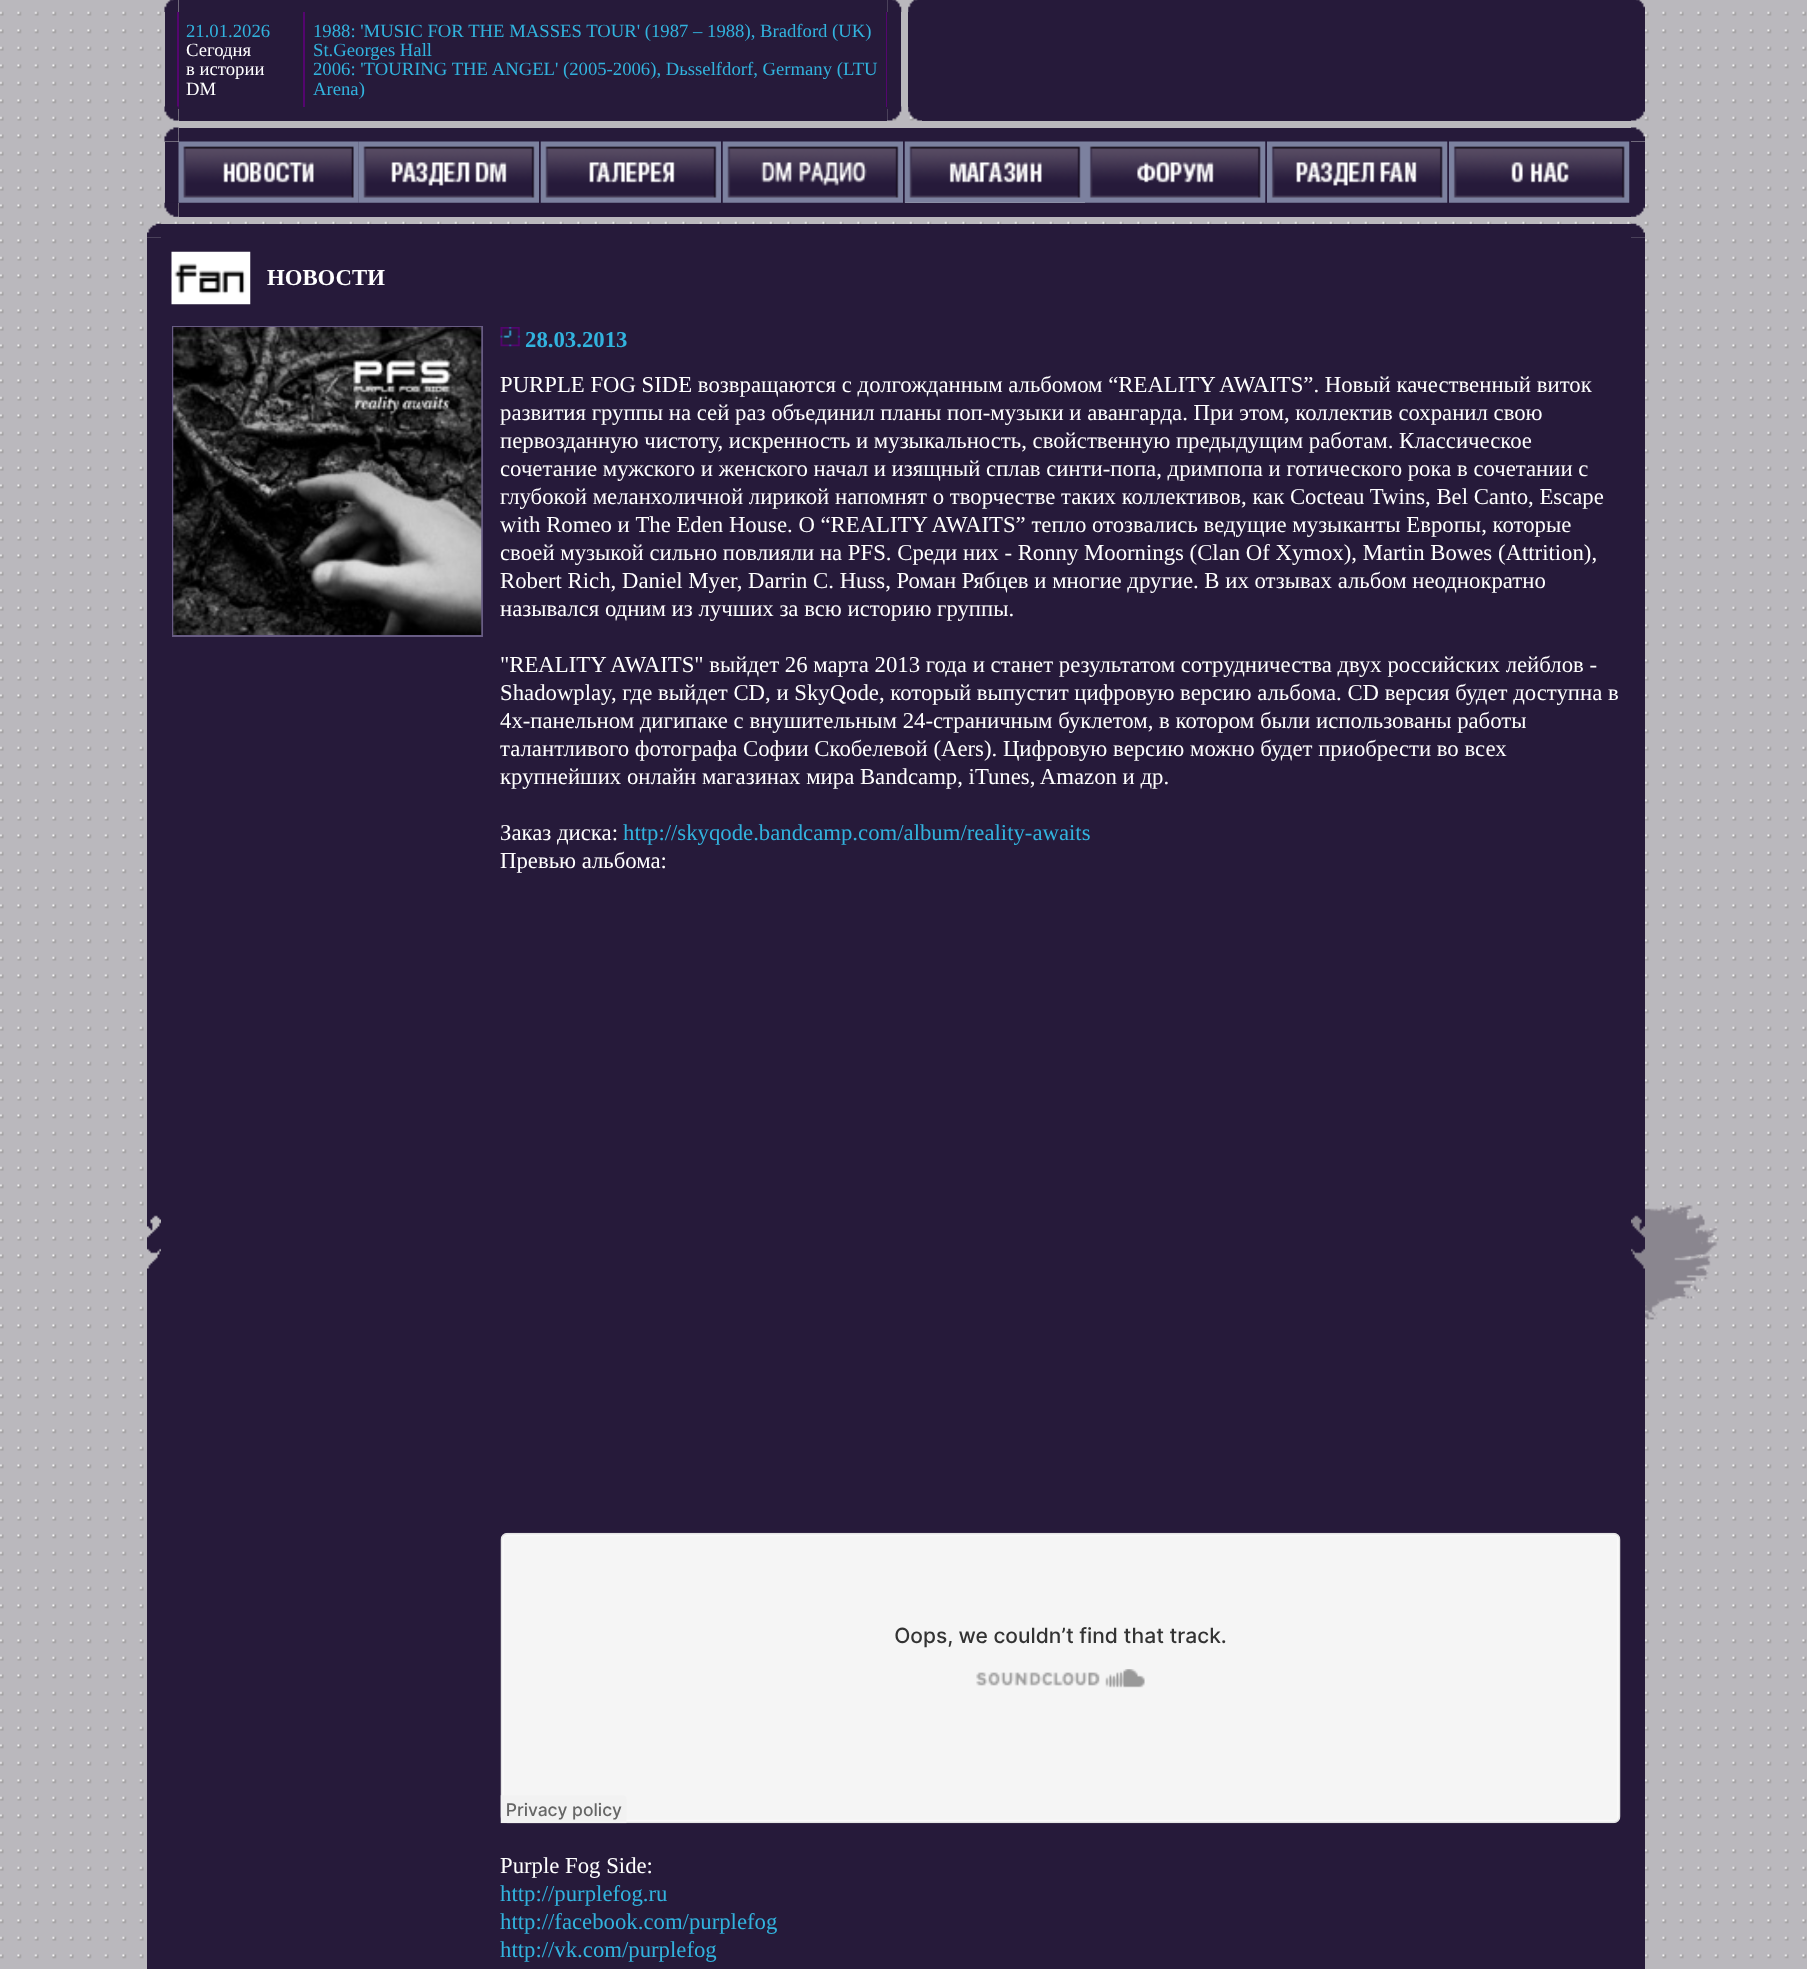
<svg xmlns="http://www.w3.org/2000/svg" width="1807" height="1969">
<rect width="100%" height="100%" fill="#bab8bd"/>
<image x="0" y="11" width="1807" height="1948" href="media/1.png"/>
<image x="164" y="0" width="15" height="12" href="media/2.png"/>
<rect x="179" width="708" height="12" fill="#261a3a"/>
<image x="887" y="0" width="15" height="12" href="media/3.png"/>
<image x="908" y="0" width="14" height="12" href="media/4.png"/>
<rect x="922" width="709" height="12" fill="#261a3a"/>
<image x="1631" y="0" width="14" height="12" href="media/5.png"/>
<rect x="165" y="12" width="12" height="95" fill="#261a3a"/>
<rect x="179" y="12" width="707" height="95" fill="#261a3a"/>
<rect x="177" y="12" width="2" height="97" fill="#54056f"/>
<text x="186" y="37" style="font-family:Liberation Serif;font-size:18.7px;fill:#32b3de">21.01.2026</text>
<text x="186" y="56" style="font-family:Liberation Serif;font-size:18.7px;fill:#fff">Сегодня</text>
<text x="186" y="75" style="font-family:Liberation Serif;font-size:18.7px;fill:#fff">в истории</text>
<text x="186" y="95" style="font-family:Liberation Serif;font-size:18.7px;fill:#fff">DM</text>
<rect x="886" y="12" width="2" height="97" fill="#54056f"/>
<rect x="303" y="12" width="2" height="97" fill="#54056f"/>
<text x="313" y="37" style="font-family:Liberation Serif;font-size:18.7px;fill:#32b3de">1988: 'MUSIC FOR THE MASSES TOUR' (1987 – 1988), Bradford (UK)</text>
<text x="313" y="56" style="font-family:Liberation Serif;font-size:18.7px;fill:#32b3de">St.Georges Hall</text>
<text x="313" y="75" style="font-family:Liberation Serif;font-size:18.7px;fill:#32b3de">2006: 'TOURING THE ANGEL' (2005-2006), Dьsselfdorf, Germany (LTU</text>
<text x="313" y="95" style="font-family:Liberation Serif;font-size:18.7px;fill:#32b3de">Arena)</text>
<rect x="887" y="12" width="14" height="95" fill="#261a3a"/>
<rect x="908" y="12" width="737" height="95" fill="#261a3a"/>
<image x="164" y="106" width="15" height="15" href="media/6.png"/>
<rect x="179" y="107" width="708" height="14" fill="#261a3a"/>
<image x="887" y="106" width="15" height="15" href="media/7.png"/>
<image x="908" y="107" width="14" height="14" href="media/8.png"/>
<rect x="922" y="107" width="709" height="14" fill="#261a3a"/>
<image x="1631" y="107" width="14" height="14" href="media/9.png"/>
<image x="164" y="127" width="15" height="15" href="media/10.png"/>
<rect x="179" y="128" width="1452" height="14" fill="#261a3a"/>
<image x="1631" y="127" width="14" height="15" href="media/11.png"/>
<rect x="165" y="142" width="740" height="61" fill="#261a3a"/>
<image x="164" y="202" width="15" height="15" href="media/20.png"/>
<image x="178" y="141" width="181" height="62" href="media/12.png"/>
<image x="358" y="141" width="181" height="62" href="media/13.png"/>
<image x="540" y="141" width="181" height="62" href="media/14.png"/>
<image x="722" y="141" width="181" height="62" href="media/15.png"/>
<image x="904" y="141" width="181" height="62" href="media/16.png"/>
<rect x="1085" y="142" width="560" height="61" fill="#261a3a"/>
<image x="1085" y="141" width="181" height="62" href="media/17.png"/>
<image x="1267" y="141" width="181" height="62" href="media/18.png"/>
<image x="1449" y="141" width="181" height="62" href="media/19.png"/>
<rect x="179" y="203" width="1452" height="14" fill="#261a3a"/>
<image x="1631" y="203" width="14" height="14" href="media/21.png"/>
<image x="147" y="223" width="14" height="15" href="media/22.png"/>
<rect x="161" y="224" width="1470" height="14" fill="#261a3a"/>
<image x="1631" y="223" width="14" height="15" href="media/23.png"/>
<rect x="147" y="238" width="1498" height="1731" fill="#261a3a"/>
<image x="147" y="1215" width="14" height="54" href="media/24.png"/>
<image x="171" y="251" width="80" height="54" href="media/25.png"/>
<text x="267" y="285" style="font-family:Liberation Serif;font-size:22.75px;font-weight:bold;fill:#fff">НОВОСТИ</text>
<rect x="173" y="327" width="309" height="309" fill="none" stroke="#685c84" stroke-width="2"/>
<image x="173" y="327" width="309" height="308" href="media/26.png"/>
<image x="500" y="327" width="20" height="20" href="media/27.png"/>
<text x="525" y="347" style="font-family:Liberation Serif;font-size:22.75px;font-weight:bold;fill:#32b3de">28.03.2013</text>
<text x="500" y="392" style="font-family:Liberation Serif;font-size:22.75px;fill:#fff">PURPLE FOG SIDE возвращаются c долгожданным альбомом “REALITY AWAITS”. Новый качественный виток</text>
<text x="500" y="420" style="font-family:Liberation Serif;font-size:22.75px;fill:#fff">развития группы на сей раз объединил планы поп-музыки и авангарда. При этом, коллектив сохранил свою</text>
<text x="500" y="448" style="font-family:Liberation Serif;font-size:22.75px;fill:#fff">первозданную чистоту, искренность и музыкальность, свойственную предыдущим работам. Классическое</text>
<text x="500" y="476" style="font-family:Liberation Serif;font-size:22.75px;fill:#fff">сочетание мужского и женского начал и изящный сплав синти-попа, дримпопа и готического рока в сочетании с</text>
<text x="500" y="504" style="font-family:Liberation Serif;font-size:22.75px;fill:#fff">глубокой меланхоличной лирикой напомнят о творчестве таких коллективов, как Cocteau Twins, Bel Canto, Escape</text>
<text x="500" y="532" style="font-family:Liberation Serif;font-size:22.75px;fill:#fff">with Romeo и The Eden House. О “REALITY AWAITS” тепло отозвались ведущие музыканты Европы, которые</text>
<text x="500" y="560" style="font-family:Liberation Serif;font-size:22.75px;fill:#fff">своей музыкой сильно повлияли на PFS. Среди них - Ronny Moornings (Clan Of Xymox), Martin Bowes (Attrition),</text>
<text x="500" y="588" style="font-family:Liberation Serif;font-size:22.75px;fill:#fff">Robert Rich, Daniel Myer, Darrin C. Huss, Роман Рябцев и многие другие. В их отзывах альбом неоднократно</text>
<text x="500" y="616" style="font-family:Liberation Serif;font-size:22.75px;fill:#fff">назывался одним из лучших за всю историю группы.</text>
<text x="500" y="672" style="font-family:Liberation Serif;font-size:22.75px;fill:#fff">"REALITY AWAITS" выйдет 26 марта 2013 года и станет результатом сотрудничества двух российских лейблов -</text>
<text x="500" y="700" style="font-family:Liberation Serif;font-size:22.75px;fill:#fff">Shadowplay, где выйдет CD, и SkyQode, который выпустит цифровую версию альбома. CD версия будет доступна в</text>
<text x="500" y="728" style="font-family:Liberation Serif;font-size:22.75px;fill:#fff">4х-панельном дигипаке с внушительным 24-страничным буклетом, в котором были использованы работы</text>
<text x="500" y="756" style="font-family:Liberation Serif;font-size:22.75px;fill:#fff">талантливого фотографа Софии Скобелевой (Aers). Цифровую версию можно будет приобрести во всех</text>
<text x="500" y="784" style="font-family:Liberation Serif;font-size:22.75px;fill:#fff">крупнейших онлайн магазинах мира Bandcamp, iTunes, Amazon и др.</text>
<text x="500" y="840" style="font-family:Liberation Serif;font-size:22.75px;fill:#fff">Заказ диска:</text>
<text x="623" y="840" style="font-family:Liberation Serif;font-size:22.75px;fill:#32b3de">http://skyqode.bandcamp.com/album/reality-awaits</text>
<text x="500" y="868" style="font-family:Liberation Serif;font-size:22.75px;fill:#fff">Превью альбома:</text>
<image x="500" y="1532" width="1121" height="292" href="media/28.png"/>
<text x="500" y="1873" style="font-family:Liberation Serif;font-size:22.75px;fill:#fff">Purple Fog Side:</text>
<text x="500" y="1901" style="font-family:Liberation Serif;font-size:22.75px;fill:#32b3de">http://purplefog.ru</text>
<text x="500" y="1929" style="font-family:Liberation Serif;font-size:22.75px;fill:#32b3de">http://facebook.com/purplefog</text>
<text x="500" y="1957" style="font-family:Liberation Serif;font-size:22.75px;fill:#32b3de">http://vk.com/purplefog</text>
<image x="1631" y="1215" width="14" height="54" href="media/29.png"/>
<image x="1645" y="1205" width="73" height="115" href="media/30.png"/>
</svg>
